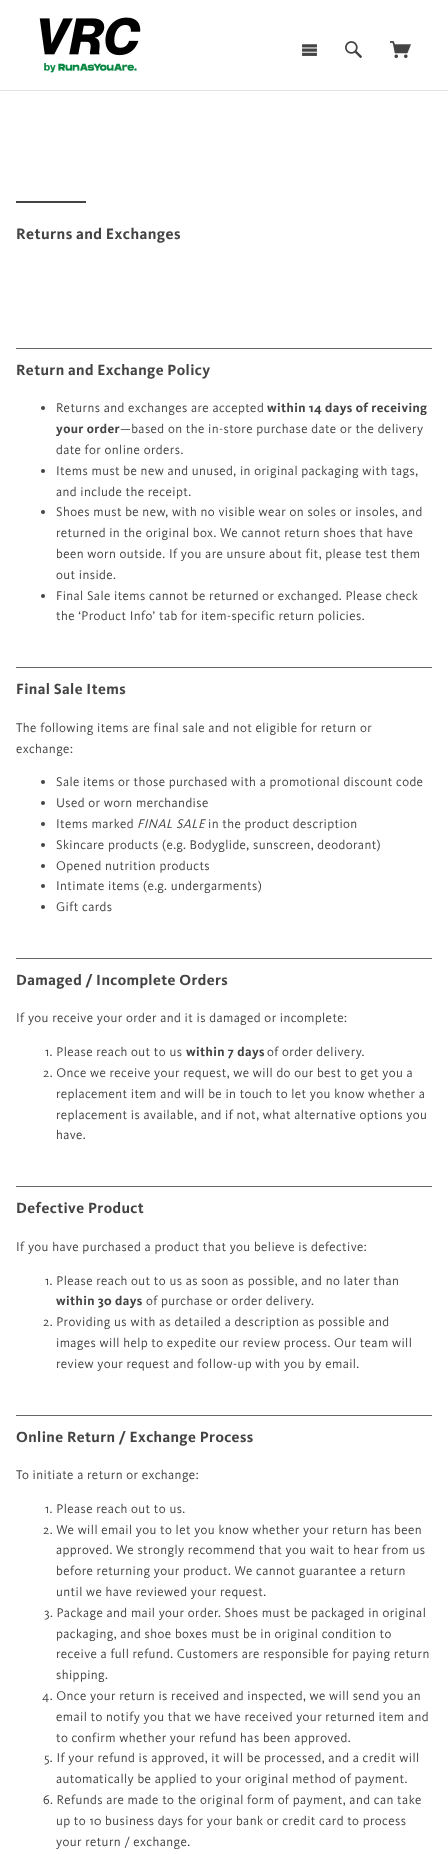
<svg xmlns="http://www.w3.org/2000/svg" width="448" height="1854">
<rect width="100%" height="100%" fill="#fff"/>
<image x="39" y="17" width="102" height="56" href="media/1.png"/>
<image x="302" y="44" width="15" height="12" href="media/2.png"/>
<image x="345" y="41" width="17" height="18" href="media/3.png"/>
<image x="390" y="41" width="21" height="18" href="media/4.png"/>
<rect y="90" width="448" height="1" fill="#e3e3e3"/>
<rect x="16" y="201" width="70" height="2" fill="#444"/>
<text x="16" y="239" style="font-family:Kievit;font-size:15.6px;font-weight:bold;letter-spacing:0.4px;fill:#444">Returns and Exchanges</text>
<rect x="16" y="348" width="416" height="1" fill="#666"/>
<text x="16" y="375" style="font-family:Kievit;font-size:15.25px;font-weight:bold;letter-spacing:0.4px;fill:#444">Return and Exchange Policy</text>
<circle cx="43" cy="408" r="2" fill="#444"/>
<text x="56" y="412" style="font-family:Kievit;font-size:13px;letter-spacing:0.4px;fill:#444">Returns and exchanges are accepted</text>
<text x="267" y="412" style="font-family:Kievit;font-size:13px;font-weight:bold;letter-spacing:0.4px;fill:#444">within 14 days of receiving</text>
<text x="56" y="433" style="font-family:Kievit;font-size:13px;font-weight:bold;letter-spacing:0.4px;fill:#444">your order</text>
<text x="120" y="433" style="font-family:Kievit;font-size:13px;letter-spacing:0.4px;fill:#444">—based on the in-store purchase date or the delivery</text>
<text x="56" y="454" style="font-family:Kievit;font-size:13px;letter-spacing:0.4px;fill:#444">date for online orders.</text>
<circle cx="43" cy="471" r="2" fill="#444"/>
<text x="56" y="475" style="font-family:Kievit;font-size:13px;letter-spacing:0.4px;fill:#444">Items must be new and unused, in original packaging with tags,</text>
<text x="56" y="496" style="font-family:Kievit;font-size:13px;letter-spacing:0.4px;fill:#444">and include the receipt.</text>
<circle cx="43" cy="512" r="2" fill="#444"/>
<text x="56" y="516" style="font-family:Kievit;font-size:13px;letter-spacing:0.4px;fill:#444">Shoes must be new, with no visible wear on soles or insoles, and</text>
<text x="56" y="537" style="font-family:Kievit;font-size:13px;letter-spacing:0.4px;fill:#444">returned in the original box. We cannot return shoes that have</text>
<text x="56" y="558" style="font-family:Kievit;font-size:13px;letter-spacing:0.4px;fill:#444">been worn outside. If you are unsure about fit, please test them</text>
<text x="56" y="579" style="font-family:Kievit;font-size:13px;letter-spacing:0.4px;fill:#444">out inside.</text>
<circle cx="43" cy="596" r="2" fill="#444"/>
<text x="56" y="600" style="font-family:Kievit;font-size:13px;letter-spacing:0.4px;fill:#444">Final Sale items cannot be returned or exchanged. Please check</text>
<text x="56" y="620" style="font-family:Kievit;font-size:13px;letter-spacing:0.4px;fill:#444">the ‘Product Info’ tab for item-specific return policies.</text>
<rect x="16" y="667" width="416" height="1" fill="#666"/>
<text x="16" y="694" style="font-family:Kievit;font-size:15.25px;font-weight:bold;letter-spacing:0.4px;fill:#444">Final Sale Items</text>
<text x="16" y="732" style="font-family:Kievit;font-size:13px;letter-spacing:0.4px;fill:#444">The following items are final sale and not eligible for return or</text>
<text x="16" y="753" style="font-family:Kievit;font-size:13px;letter-spacing:0.4px;fill:#444">exchange:</text>
<circle cx="43" cy="782" r="2" fill="#444"/>
<text x="56" y="786" style="font-family:Kievit;font-size:13px;letter-spacing:0.4px;fill:#444">Sale items or those purchased with a promotional discount code</text>
<circle cx="43" cy="803" r="2" fill="#444"/>
<text x="56" y="807" style="font-family:Kievit;font-size:13px;letter-spacing:0.4px;fill:#444">Used or worn merchandise</text>
<circle cx="43" cy="824" r="2" fill="#444"/>
<text x="56" y="828" style="font-family:Kievit;font-size:13px;letter-spacing:0.4px;fill:#444">Items marked</text>
<text x="137" y="828" style="font-family:Kievit;font-size:13px;font-style:italic;letter-spacing:0.4px;fill:#444">FINAL SALE</text>
<text x="208" y="828" style="font-family:Kievit;font-size:13px;letter-spacing:0.4px;fill:#444">in the product description</text>
<circle cx="43" cy="845" r="2" fill="#444"/>
<text x="56" y="849" style="font-family:Kievit;font-size:13px;letter-spacing:0.4px;fill:#444">Skincare products (e.g. Bodyglide, sunscreen, deodorant)</text>
<circle cx="43" cy="866" r="2" fill="#444"/>
<text x="56" y="870" style="font-family:Kievit;font-size:13px;letter-spacing:0.4px;fill:#444">Opened nutrition products</text>
<circle cx="43" cy="886" r="2" fill="#444"/>
<text x="56" y="890" style="font-family:Kievit;font-size:13px;letter-spacing:0.4px;fill:#444">Intimate items (e.g. undergarments)</text>
<circle cx="43" cy="907" r="2" fill="#444"/>
<text x="56" y="911" style="font-family:Kievit;font-size:13px;letter-spacing:0.4px;fill:#444">Gift cards</text>
<rect x="16" y="958" width="416" height="1" fill="#666"/>
<text x="16" y="985" style="font-family:Kievit;font-size:15.25px;font-weight:bold;letter-spacing:0.4px;fill:#444">Damaged / Incomplete Orders</text>
<text x="16" y="1022" style="font-family:Kievit;font-size:13px;letter-spacing:0.4px;fill:#444">If you receive your order and it is damaged or incomplete:</text>
<text x="45" y="1056" style="font-family:Kievit;font-size:13px;letter-spacing:0.4px;fill:#444">1. Please reach out to us</text>
<text x="186" y="1056" style="font-family:Kievit;font-size:13px;font-weight:bold;letter-spacing:0.4px;fill:#444">within 7 days</text>
<text x="267" y="1056" style="font-family:Kievit;font-size:13px;letter-spacing:0.4px;fill:#444">of order delivery.</text>
<text x="43" y="1077" style="font-family:Kievit;font-size:13px;letter-spacing:0.4px;fill:#444">2. Once we receive your request, we will do our best to get you a</text>
<text x="56" y="1098" style="font-family:Kievit;font-size:13px;letter-spacing:0.4px;fill:#444">replacement item and will be in touch to let you know whether a</text>
<text x="56" y="1119" style="font-family:Kievit;font-size:13px;letter-spacing:0.4px;fill:#444">replacement is available, and if not, what alternative options you</text>
<text x="56" y="1139" style="font-family:Kievit;font-size:13px;letter-spacing:0.4px;fill:#444">have.</text>
<rect x="16" y="1186" width="416" height="1" fill="#666"/>
<text x="16" y="1213" style="font-family:Kievit;font-size:15.25px;font-weight:bold;letter-spacing:0.4px;fill:#444">Defective Product</text>
<text x="16" y="1251" style="font-family:Kievit;font-size:13px;letter-spacing:0.4px;fill:#444">If you have purchased a product that you believe is defective:</text>
<text x="45" y="1285" style="font-family:Kievit;font-size:13px;letter-spacing:0.4px;fill:#444">1. Please reach out to us as soon as possible, and no later than</text>
<text x="56" y="1305" style="font-family:Kievit;font-size:13px;font-weight:bold;letter-spacing:0.4px;fill:#444">within 30 days</text>
<text x="146" y="1305" style="font-family:Kievit;font-size:13px;letter-spacing:0.4px;fill:#444">of purchase or order delivery.</text>
<text x="43" y="1326" style="font-family:Kievit;font-size:13px;letter-spacing:0.4px;fill:#444">2. Providing us with as detailed a description as possible and</text>
<text x="56" y="1347" style="font-family:Kievit;font-size:13px;letter-spacing:0.4px;fill:#444">images will help to expedite our review process. Our team will</text>
<text x="56" y="1368" style="font-family:Kievit;font-size:13px;letter-spacing:0.4px;fill:#444">review your request and follow-up with you by email.</text>
<rect x="16" y="1415" width="416" height="1" fill="#666"/>
<text x="16" y="1442" style="font-family:Kievit;font-size:15.25px;font-weight:bold;letter-spacing:0.4px;fill:#444">Online Return / Exchange Process</text>
<text x="16" y="1479" style="font-family:Kievit;font-size:13px;letter-spacing:0.4px;fill:#444">To initiate a return or exchange:</text>
<text x="45" y="1513" style="font-family:Kievit;font-size:13px;letter-spacing:0.4px;fill:#444">1. Please reach out to us.</text>
<text x="43" y="1534" style="font-family:Kievit;font-size:13px;letter-spacing:0.4px;fill:#444">2. We will email you to let you know whether your return has been</text>
<text x="56" y="1554" style="font-family:Kievit;font-size:13px;letter-spacing:0.4px;fill:#444">approved. We strongly recommend that you wait to hear from us</text>
<text x="56" y="1575" style="font-family:Kievit;font-size:13px;letter-spacing:0.4px;fill:#444">before returning your product. We cannot guarantee a return</text>
<text x="56" y="1596" style="font-family:Kievit;font-size:13px;letter-spacing:0.4px;fill:#444">until we have reviewed your request.</text>
<text x="44" y="1617" style="font-family:Kievit;font-size:13px;letter-spacing:0.4px;fill:#444">3. Package and mail your order. Shoes must be packaged in original</text>
<text x="56" y="1638" style="font-family:Kievit;font-size:13px;letter-spacing:0.4px;fill:#444">packaging, and shoe boxes must be in original condition to</text>
<text x="56" y="1658" style="font-family:Kievit;font-size:13px;letter-spacing:0.4px;fill:#444">receive a full refund. Customers are responsible for paying return</text>
<text x="56" y="1679" style="font-family:Kievit;font-size:13px;letter-spacing:0.4px;fill:#444">shipping.</text>
<text x="42" y="1700" style="font-family:Kievit;font-size:13px;letter-spacing:0.4px;fill:#444">4. Once your return is received and inspected, we will send you an</text>
<text x="56" y="1721" style="font-family:Kievit;font-size:13px;letter-spacing:0.4px;fill:#444">email to notify you that we have received your returned item and</text>
<text x="56" y="1742" style="font-family:Kievit;font-size:13px;letter-spacing:0.4px;fill:#444">to confirm whether your refund has been approved.</text>
<text x="44" y="1762" style="font-family:Kievit;font-size:13px;letter-spacing:0.4px;fill:#444">5. If your refund is approved, it will be processed, and a credit will</text>
<text x="56" y="1783" style="font-family:Kievit;font-size:13px;letter-spacing:0.4px;fill:#444">automatically be applied to your original method of payment.</text>
<text x="43" y="1804" style="font-family:Kievit;font-size:13px;letter-spacing:0.4px;fill:#444">6. Refunds are made to the original form of payment, and can take</text>
<text x="56" y="1825" style="font-family:Kievit;font-size:13px;letter-spacing:0.4px;fill:#444">up to 10 business days for your bank or credit card to process</text>
<text x="56" y="1846" style="font-family:Kievit;font-size:13px;letter-spacing:0.4px;fill:#444">your return / exchange.</text>
</svg>
